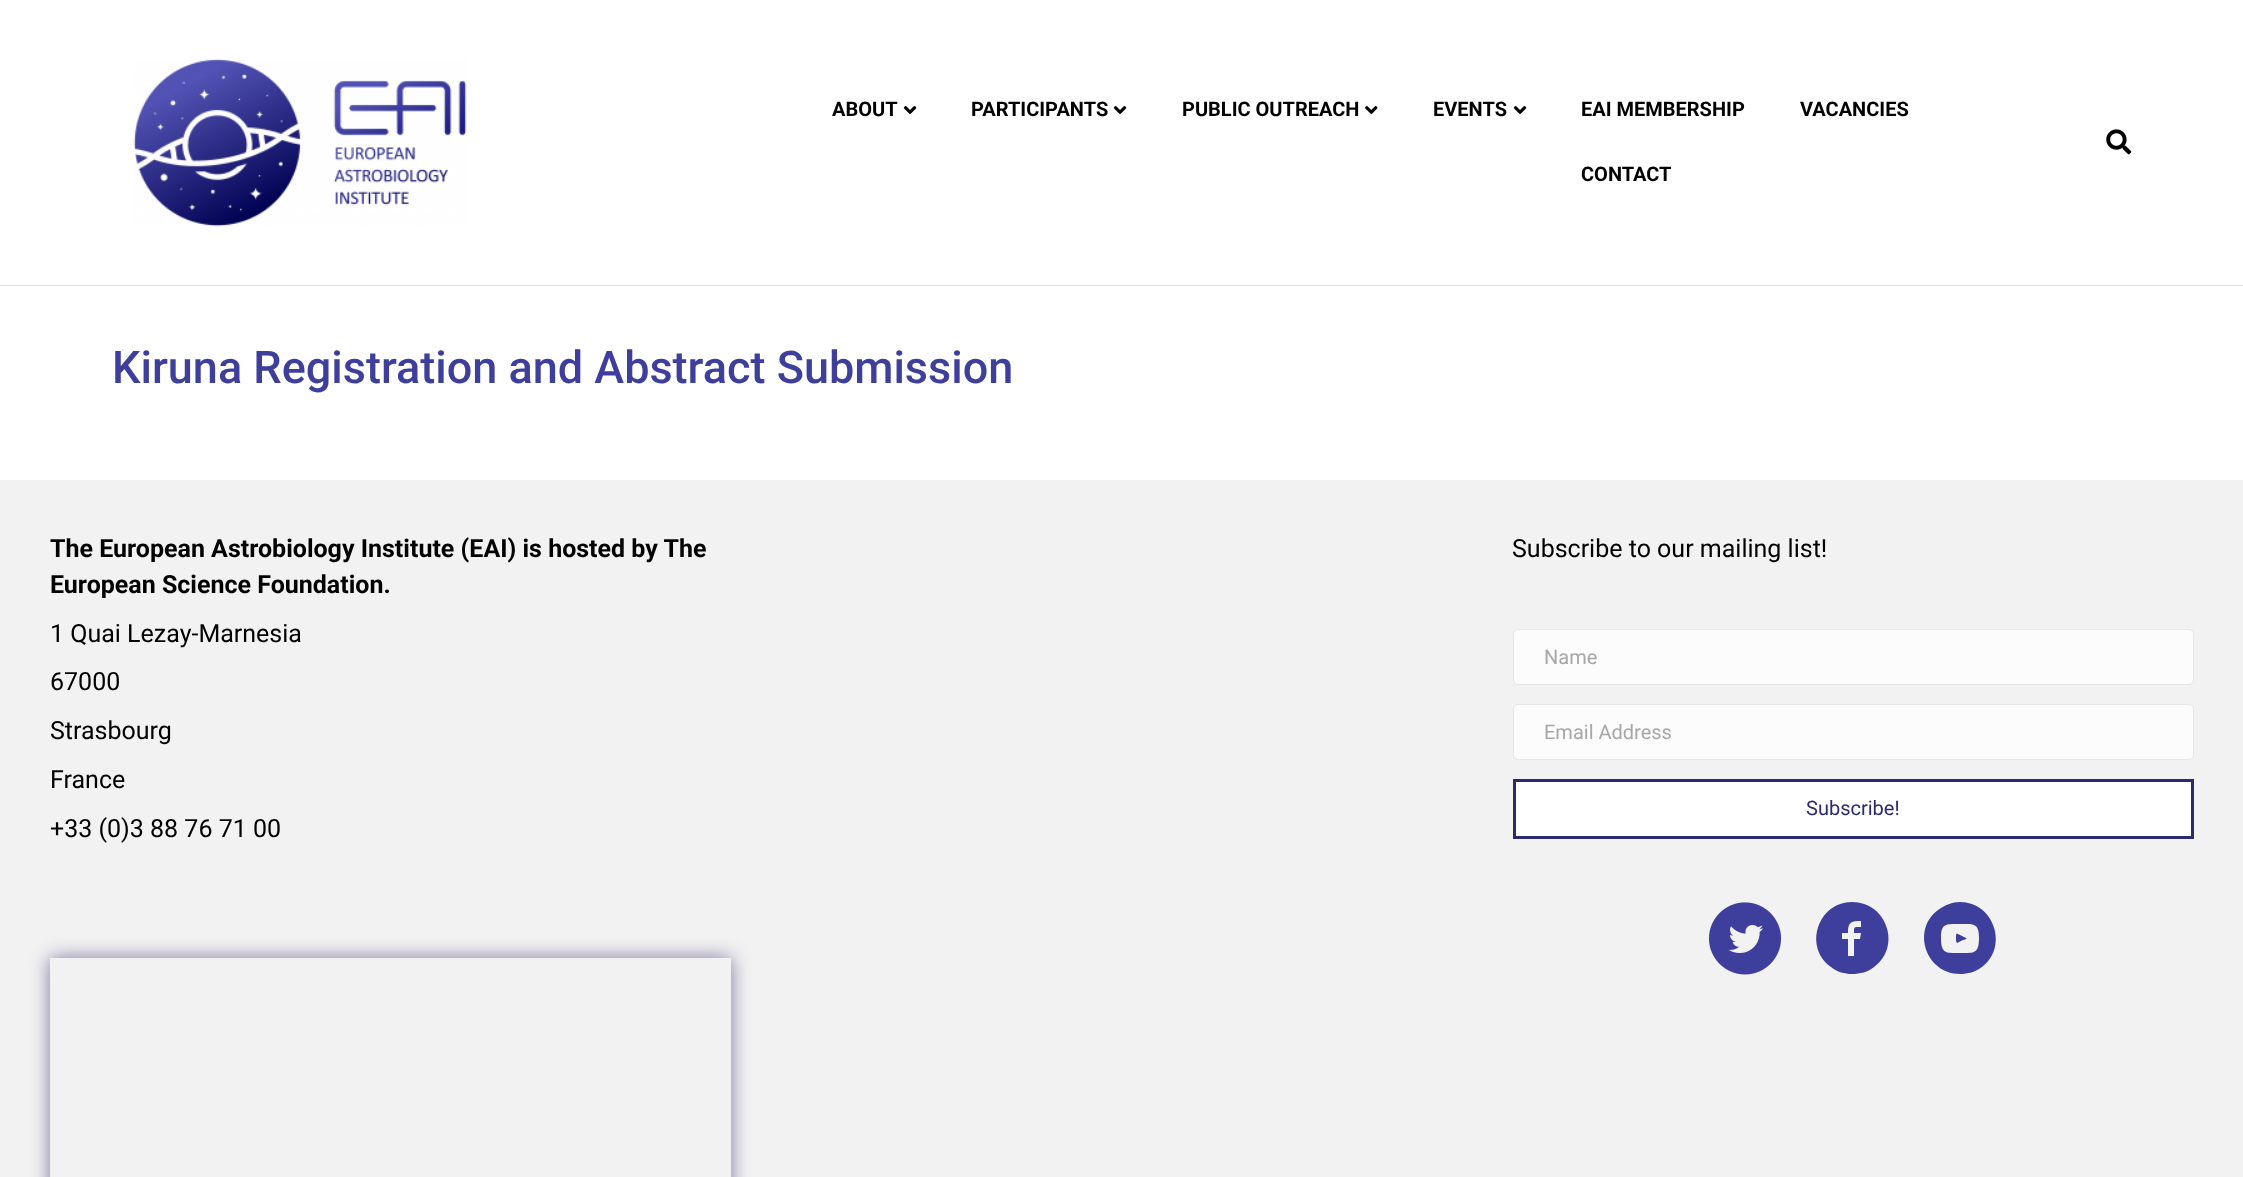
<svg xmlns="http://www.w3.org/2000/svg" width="2243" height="1177">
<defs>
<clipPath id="clip1"><path d="M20 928h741v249h-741zm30 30h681v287h-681z" clip-rule="evenodd"/></clipPath>
</defs>
<rect width="100%" height="100%" fill="#f2f2f2"/>
<rect width="2243" height="285" fill="#fff"/>
<rect y="285" width="2243" height="1" fill="#dedede"/>
<image x="133" y="59" width="334" height="168" href="media/1.png"/>
<text x="832" y="116" style="font-family:Roboto;font-size:20px;font-weight:bold;fill:#000">ABOUT</text>
<image x="903" y="106" width="14" height="8" href="media/2.png"/>
<text x="971" y="116" style="font-family:Roboto;font-size:20px;font-weight:bold;fill:#000">PARTICIPANTS</text>
<image x="1113" y="106" width="14" height="8" href="media/2.png"/>
<text x="1182" y="116" style="font-family:Roboto;font-size:20px;font-weight:bold;fill:#000">PUBLIC OUTREACH</text>
<image x="1365" y="106" width="13" height="8" href="media/3.png"/>
<text x="1433" y="116" style="font-family:Roboto;font-size:20px;font-weight:bold;fill:#000">EVENTS</text>
<image x="1513" y="106" width="14" height="8" href="media/2.png"/>
<text x="1581" y="116" style="font-family:Roboto;font-size:20px;font-weight:bold;fill:#000">EAI MEMBERSHIP</text>
<text x="1800" y="116" style="font-family:Roboto;font-size:20px;font-weight:bold;fill:#000">VACANCIES</text>
<text x="1581" y="181" style="font-family:Roboto;font-size:20px;font-weight:bold;fill:#000">CONTACT</text>
<image x="2106" y="129" width="26" height="26" href="media/4.png"/>
<rect y="286" width="2243" height="194" fill="#fff"/>
<text x="112" y="383" style="font-family:Roboto;font-size:45px;font-weight:500;fill:#3e3e9c">Kiruna Registration and Abstract Submission</text>
<text x="50" y="557" style="font-family:Roboto;font-size:25px;font-weight:bold;fill:#000">The European Astrobiology Institute (EAI) is hosted by The</text>
<text x="50" y="593" style="font-family:Roboto;font-size:25px;font-weight:bold;fill:#000">European Science Foundation.</text>
<text x="50" y="642" style="font-family:Roboto;font-size:25px;fill:#000">1 Quai Lezay-Marnesia</text>
<text x="50" y="690" style="font-family:Roboto;font-size:25px;fill:#000">67000</text>
<text x="50" y="739" style="font-family:Roboto;font-size:25px;fill:#000">Strasbourg</text>
<text x="50" y="788" style="font-family:Roboto;font-size:25px;fill:#000">France</text>
<text x="50" y="837" style="font-family:Roboto;font-size:25px;fill:#000">+33 (0)3 88 76 71 00</text>
<g clip-path="url(#clip1)">
<rect x="50" y="958" width="681" height="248" fill="#7f75a0" filter="blur(9.5px)"/>
</g>
<text x="1512" y="557" style="font-family:Roboto;font-size:25px;fill:#000">Subscribe to our mailing list!</text>
<rect x="1513.5" y="629.5" width="680" height="55" rx="4.5" fill="#fcfcfc" stroke="#e6e6e6"/>
<text x="1544" y="664" style="font-family:Roboto;font-size:20px;fill:#a7a7a7">Name</text>
<rect x="1513.5" y="704.5" width="680" height="55" rx="4.5" fill="#fcfcfc" stroke="#e6e6e6"/>
<text x="1544" y="739" style="font-family:Roboto;font-size:20px;fill:#a7a7a7">Email Address</text>
<rect x="1514.5" y="780.5" width="678" height="57" fill="#fff" stroke="#2c2a6f" stroke-width="3"/>
<text x="1806" y="815" style="font-family:Roboto;font-size:20px;fill:#2c2a6f">Subscribe!</text>
<image x="1708" y="902" width="74" height="73" href="media/5.png"/>
<path d="M1852 902c-34 0-49 45-21 65c6 5 14 7 21 7c8 0 16-2 22-7c28-20 13-65-22-65zm9 25c-7 0-7-1-7 6h7l-1 6h-6v17h-6v-17h-6v-6h6c0-11 3-12 13-12z" fill="#3e3e9c"/>
<path d="M1966 938c-11-5-10-7-10 3l1 2l6-3c0 0 5-1 3-2zm-6-36c-8 0-15 3-22 8c-27 20-12 64 22 64c8 0 15-2 22-7c27-20 12-65-22-65zm0 51c-14 0-19 1-19-15c0-15 5-14 19-14c14 0 19-1 19 14c0 16-5 15-19 15z" fill="#3e3e9c"/>
</svg>
